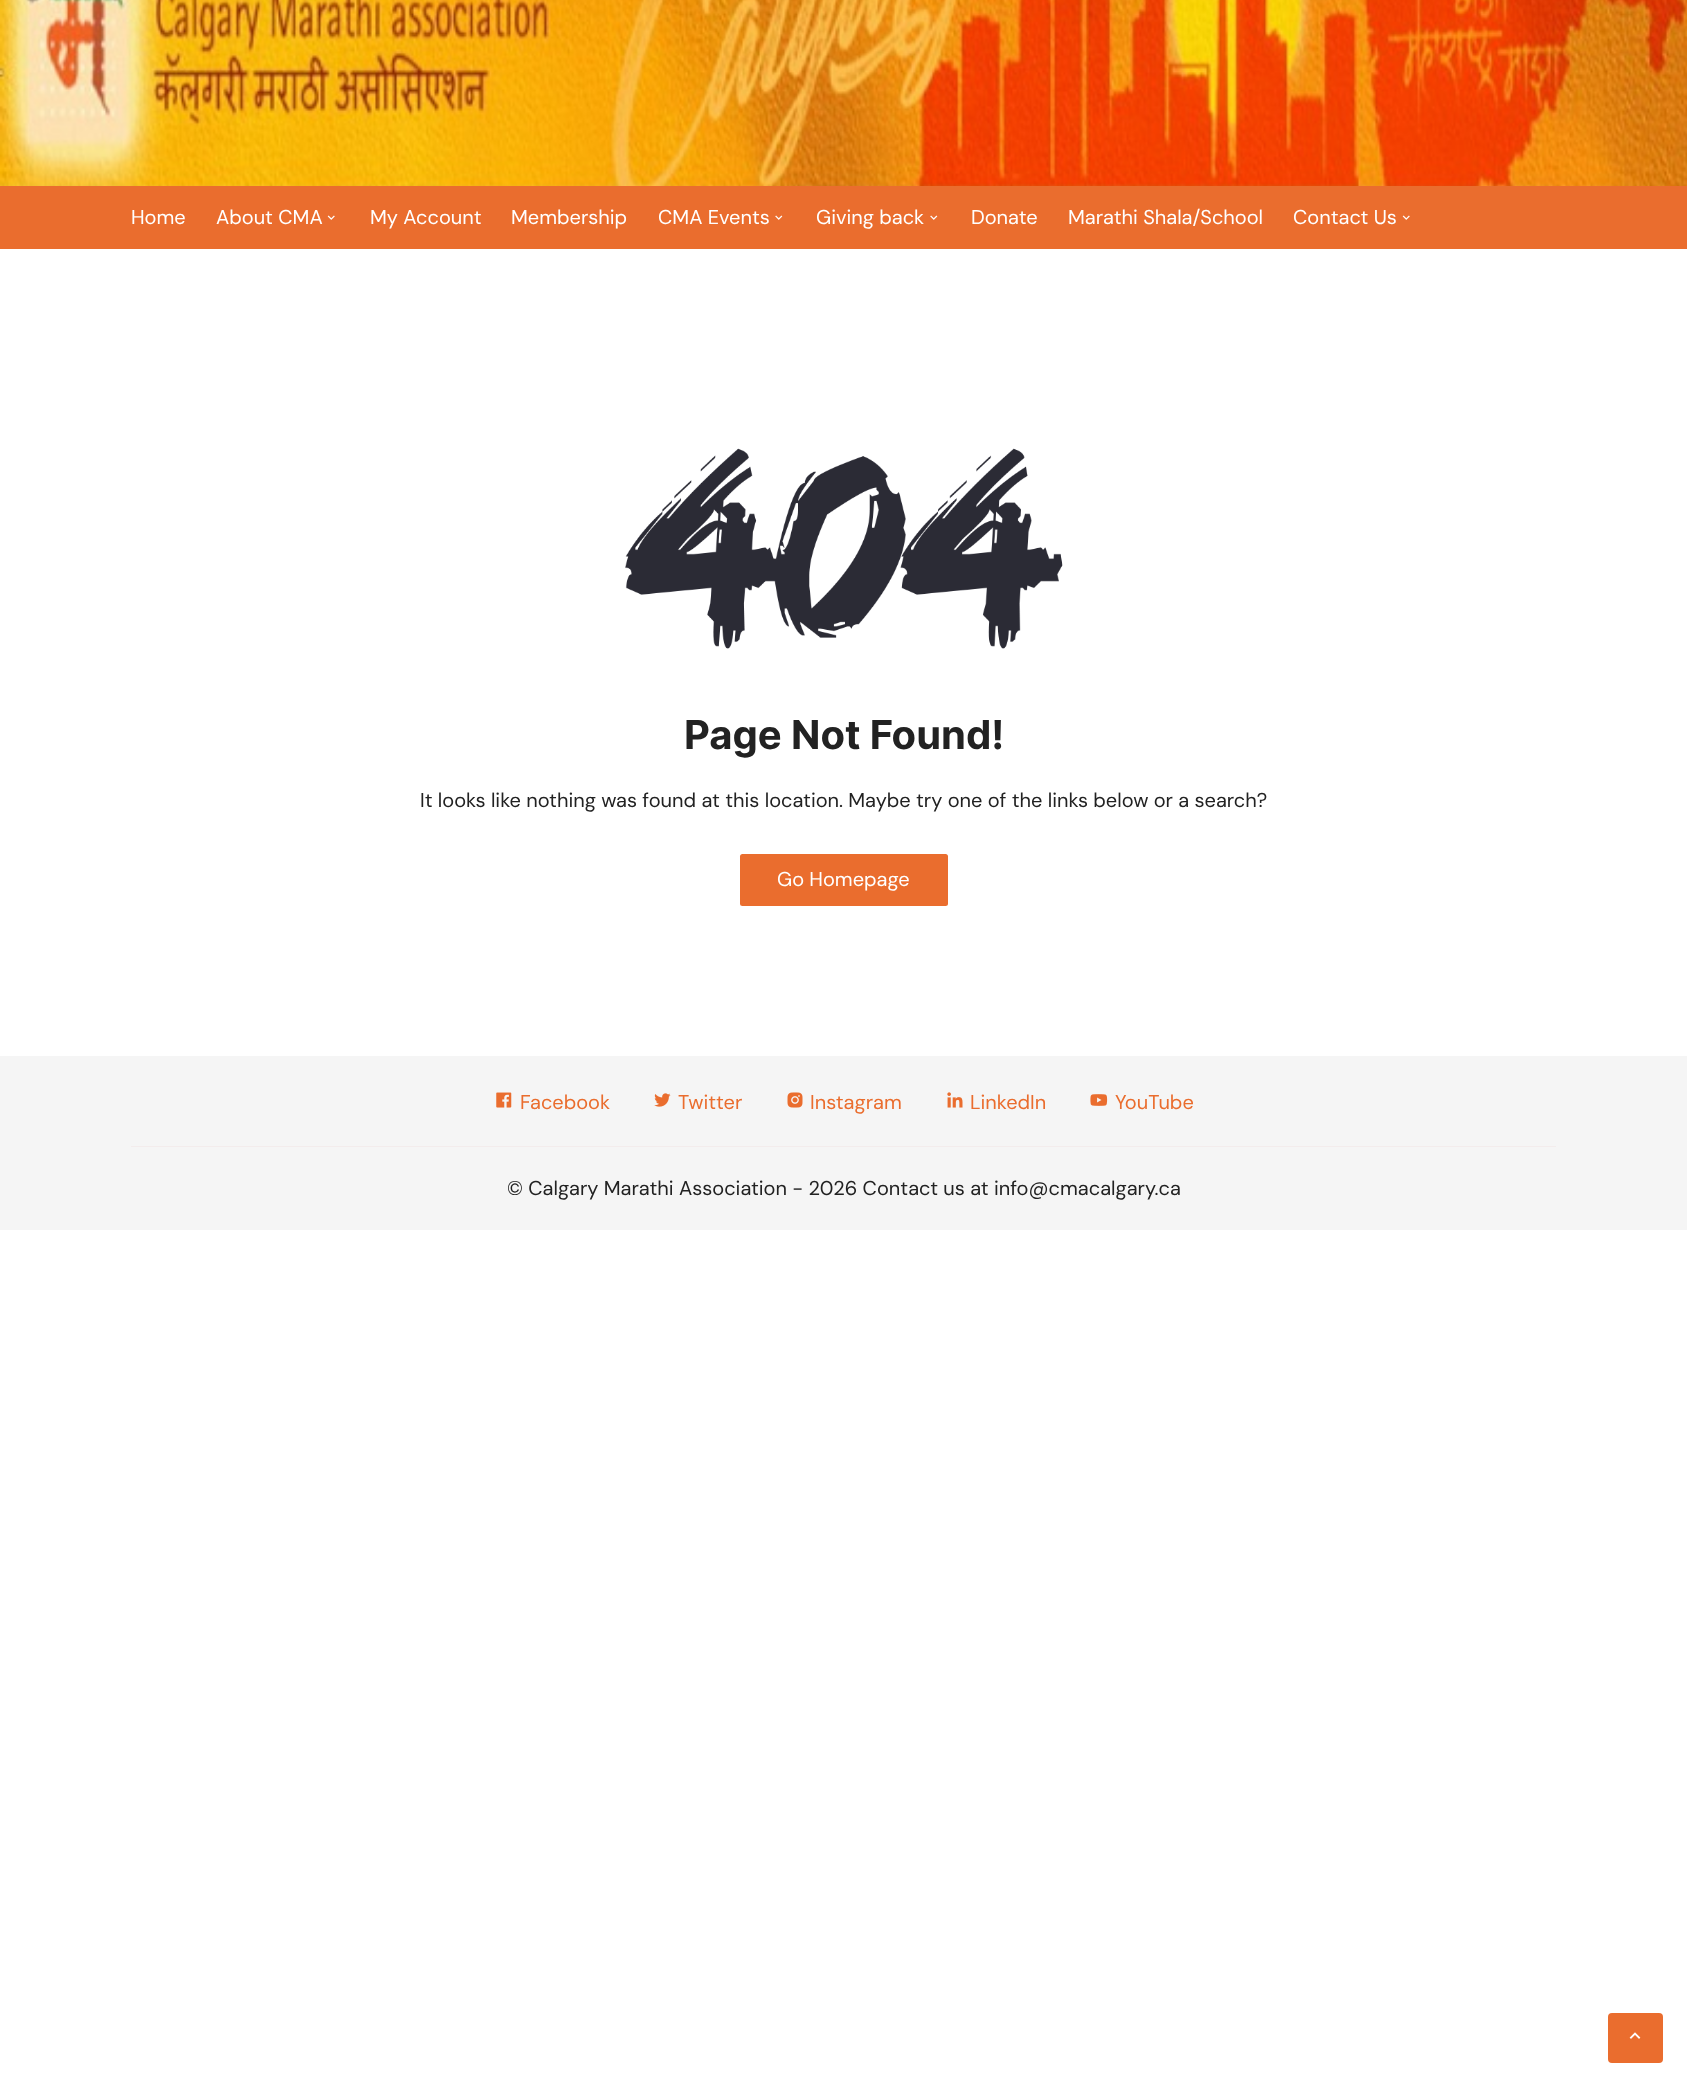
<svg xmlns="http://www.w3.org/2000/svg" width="1687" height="2099">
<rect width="100%" height="100%" fill="#fff"/>
<image x="0" y="0" width="1687" height="186" href="media/1.png"/>
<rect y="186" width="1687" height="63" fill="#ea6d2e"/>
<text x="131" y="224" style="font-family:DM Sans;font-size:20px;fill:#fff">Home</text>
<text x="216" y="224" style="font-family:DM Sans;font-size:20px;fill:#fff">About CMA</text>
<image x="327" y="215" width="8" height="5" href="media/2.png"/>
<text x="370" y="224" style="font-family:DM Sans;font-size:20px;fill:#fff">My Account</text>
<text x="511" y="224" style="font-family:DM Sans;font-size:20px;fill:#fff">Membership</text>
<text x="658" y="224" style="font-family:DM Sans;font-size:20px;fill:#fff">CMA Events</text>
<image x="775" y="215" width="8" height="5" href="media/3.png"/>
<text x="816" y="224" style="font-family:DM Sans;font-size:20px;fill:#fff">Giving back</text>
<image x="930" y="215" width="8" height="5" href="media/3.png"/>
<text x="971" y="224" style="font-family:DM Sans;font-size:20px;fill:#fff">Donate</text>
<text x="1068" y="224" style="font-family:DM Sans;font-size:20px;fill:#fff">Marathi Shala/School</text>
<text x="1293" y="224" style="font-family:DM Sans;font-size:20px;fill:#fff">Contact Us</text>
<image x="1402" y="215" width="8" height="5" href="media/2.png"/>
<image x="625" y="448" width="438" height="201" href="media/4.png"/>
<text x="684" y="749" style="font-family:Inter;font-size:40px;font-weight:bold;fill:#222">Page Not Found!</text>
<text x="420" y="807" style="font-family:DM Sans;font-size:20px;fill:#222">It looks like nothing was found at this location. Maybe try one of the links below or a search?</text>
<rect x="740" y="854" width="208" height="52" rx="2.5" fill="#ea6d2e"/>
<text x="777" y="886" style="font-family:DM Sans;font-size:20px;fill:#fff">Go Homepage</text>
<rect y="1056" width="1687" height="174" fill="#f5f5f5"/>
<rect x="131" y="1146" width="1425" height="1" fill="#f3ecec"/>
<image x="496" y="1092" width="16" height="16" href="media/5.png"/>
<text x="520" y="1109" style="font-family:DM Sans;font-size:20px;fill:#ea6d2e">Facebook</text>
<image x="654" y="1093" width="17" height="14" href="media/6.png"/>
<text x="678" y="1109" style="font-family:DM Sans;font-size:20px;fill:#ea6d2e">Twitter</text>
<image x="787" y="1092" width="16" height="16" href="media/7.png"/>
<text x="810" y="1109" style="font-family:DM Sans;font-size:20px;fill:#ea6d2e">Instagram</text>
<image x="947" y="1092" width="16" height="16" href="media/8.png"/>
<text x="970" y="1109" style="font-family:DM Sans;font-size:20px;fill:#ea6d2e">LinkedIn</text>
<image x="1090" y="1094" width="18" height="12" href="media/9.png"/>
<text x="1115" y="1109" style="font-family:DM Sans;font-size:20px;fill:#ea6d2e">YouTube</text>
<text x="507" y="1195" style="font-family:DM Sans;font-size:20px;fill:#222">© Calgary Marathi Association - 2026 Contact us at info@cmacalgary.ca</text>
<rect x="1608" y="2013" width="55" height="50" rx="4" fill="#ea6d2e"/>
<image x="1629" y="2032" width="12" height="7" href="media/10.png"/>
</svg>
